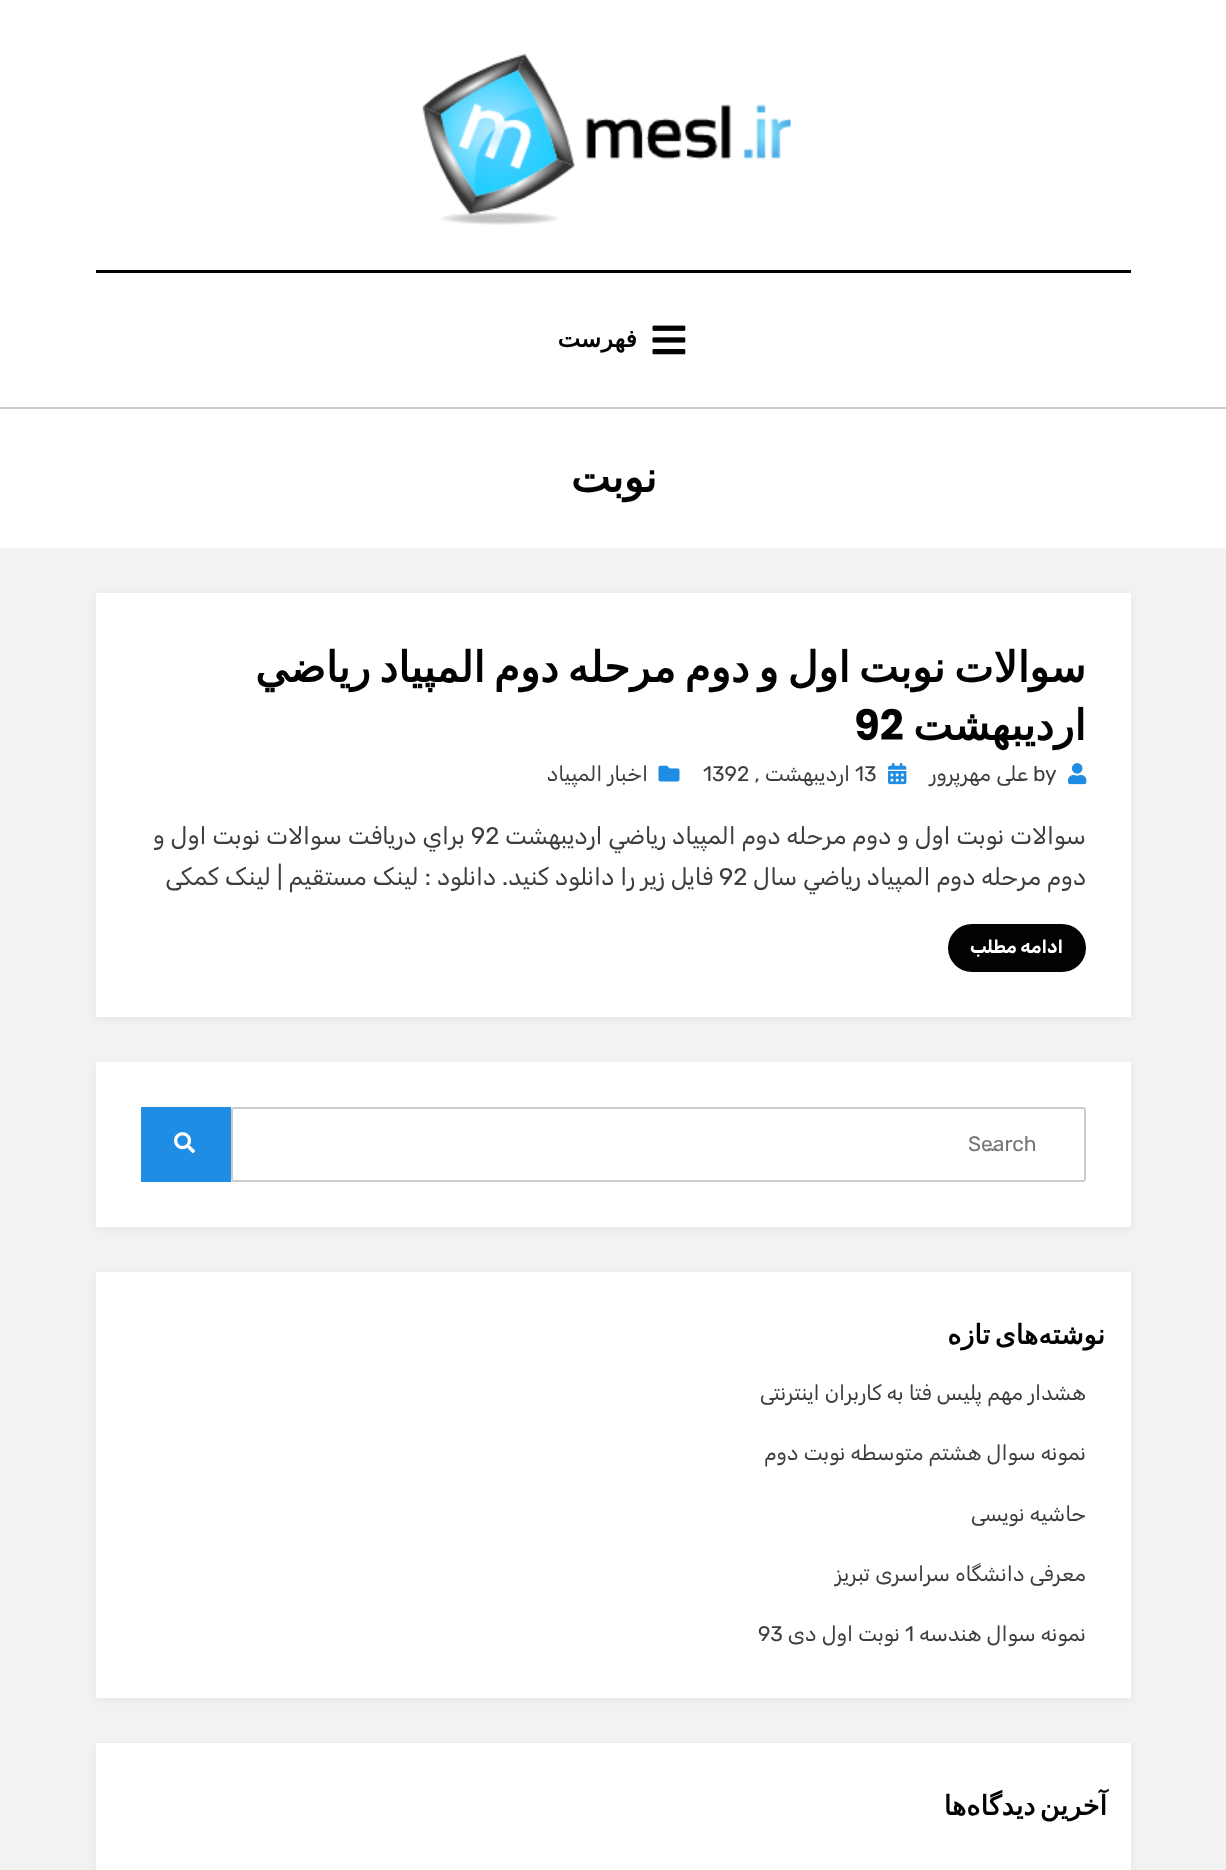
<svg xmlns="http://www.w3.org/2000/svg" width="1226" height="1870">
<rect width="100%" height="100%" fill="#f2f2f2"/>
<rect width="1226" height="407" fill="#fff"/>
<image x="422" y="53" width="369" height="172" href="media/1.png"/>
<rect x="96" y="270" width="1035" height="3" fill="#020202"/>
<image x="652" y="325" width="34" height="30" href="media/2.png"/>
<text x="637" y="347" style="font-family:DejaVu Sans;font-size:24px;font-weight:bold;direction:rtl;fill:#020202">فهرست</text>
<rect y="409" width="1226" height="139" fill="#fff"/>
<rect y="407" width="1226" height="2" fill="#ccc"/>
<text x="657" y="492" style="font-family:DejaVu Sans;font-size:42px;font-weight:bold;direction:rtl;fill:#020202">نوبت</text>
<rect x="96" y="594" width="1035" height="425" fill="#0000010d" filter="blur(4px)"/>
<rect x="96" y="593" width="1035" height="424" fill="#fff"/>
<text x="1086" y="682" word-spacing="-4.5" style="font-family:DejaVu Sans;font-size:42px;font-weight:bold;direction:rtl;fill:#020202">سوالات نوبت اول و دوم مرحله دوم المپياد رياضي</text>
<text x="1086" y="740" style="font-family:DejaVu Sans;font-size:42px;font-weight:bold;direction:rtl;fill:#020202">ارديبهشت</text>
<text x="854" y="740" style="font-family:Poppins;font-size:42px;font-weight:bold;fill:#020202">92</text>
<image x="1068" y="763" width="19" height="22" href="media/3.png"/>
<text x="1033" y="781" style="font-family:Rubik;font-size:21px;fill:#3d3d3d">by</text>
<text x="1028" y="781" style="font-family:Rubik;font-size:21px;direction:rtl;fill:#3d3d3d">علی مهرپرور</text>
<image x="888" y="763" width="19" height="22" href="media/4.png"/>
<text x="855" y="781" style="font-family:Rubik;font-size:21px;fill:#3d3d3d">13</text>
<text x="850" y="781" style="font-family:Rubik;font-size:21px;direction:rtl;fill:#3d3d3d">اردیبهشت ,</text>
<text x="703" y="781" style="font-family:Rubik;font-size:21px;fill:#3d3d3d">1392</text>
<image x="658" y="765" width="22" height="17" href="media/5.png"/>
<text x="648" y="781" style="font-family:Rubik;font-size:21px;direction:rtl;fill:#3d3d3d">اخبار المپیاد</text>
<text x="1086" y="844" style="font-family:Rubik;font-size:24px;direction:rtl;fill:#3d3d3d">سوالات نوبت اول و دوم مرحله دوم المپياد رياضي ارديبهشت</text>
<text x="471" y="844" style="font-family:Rubik;font-size:24px;fill:#3d3d3d">92</text>
<text x="465" y="844" style="font-family:Rubik;font-size:24px;direction:rtl;fill:#3d3d3d">براي دريافت سوالات نوبت اول و</text>
<text x="1086" y="885" style="font-family:Rubik;font-size:24px;direction:rtl;fill:#3d3d3d">دوم مرحله دوم المپياد رياضي سال</text>
<text x="719" y="885" style="font-family:Rubik;font-size:24px;fill:#3d3d3d">92</text>
<text x="713" y="885" style="font-family:Rubik;font-size:24px;direction:rtl;fill:#3d3d3d">فايل زير را دانلود كنيد. دانلود : لینک مستقیم | لینک کمکی</text>
<rect x="948" y="924" width="138" height="48" rx="24" fill="#020202"/>
<text x="1063" y="953" style="font-family:Rubik;font-size:18px;font-weight:bold;direction:rtl;fill:#fff">ادامه مطلب</text>
<rect x="96" y="1064" width="1035" height="165" fill="#0000010d" filter="blur(4px)"/>
<rect x="96" y="1062" width="1035" height="165" fill="#fff"/>
<rect x="232" y="1108" width="853" height="73" rx="2" fill="none" stroke="#ccc" stroke-width="2"/>
<text x="968" y="1151" style="font-family:Rubik;font-size:21px;fill:#757575">Search</text>
<text x="986" y="1151" style="font-family:Rubik;font-size:21px;fill:#757575">…</text>
<rect x="141" y="1107" width="90" height="75" fill="#208de5"/>
<image x="174" y="1132" width="21" height="22" href="media/6.png"/>
<rect x="96" y="1274" width="1035" height="426" fill="#0000010d" filter="blur(4px)"/>
<rect x="96" y="1272" width="1035" height="426" fill="#fff"/>
<text x="1105" y="1344" word-spacing="-4" style="font-family:DejaVu Sans;font-size:27px;font-weight:bold;letter-spacing:1.5px;direction:rtl;fill:#020202">نوشته‌های تازه</text>
<text x="1086" y="1400" style="font-family:Rubik;font-size:21px;direction:rtl;fill:#3d3d3d">هشدار مهم پلیس فتا به کاربران اینترنتی</text>
<text x="1086" y="1460" style="font-family:Rubik;font-size:21px;direction:rtl;fill:#3d3d3d">نمونه سوال هشتم متوسطه نوبت دوم</text>
<text x="1086" y="1521" style="font-family:Rubik;font-size:21px;direction:rtl;fill:#3d3d3d">حاشیه نویسی</text>
<text x="1086" y="1581" style="font-family:Rubik;font-size:21px;direction:rtl;fill:#3d3d3d">معرفی دانشگاه سراسری تبریز</text>
<text x="1086" y="1641" style="font-family:Rubik;font-size:21px;direction:rtl;fill:#3d3d3d">نمونه سوال هندسه</text>
<text x="905" y="1641" style="font-family:Rubik;font-size:21px;fill:#3d3d3d">1</text>
<text x="900" y="1641" style="font-family:Rubik;font-size:21px;direction:rtl;fill:#3d3d3d">نوبت اول دی</text>
<text x="758" y="1641" style="font-family:Rubik;font-size:21px;fill:#3d3d3d">93</text>
<rect x="96" y="1745" width="1035" height="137" fill="#0000010d" filter="blur(4px)"/>
<rect x="96" y="1743" width="1035" height="127" fill="#fff"/>
<text x="1107" y="1815" word-spacing="-4" style="font-family:DejaVu Sans;font-size:27px;font-weight:bold;letter-spacing:1.5px;direction:rtl;fill:#020202">آخرین دیدگاه‌ها</text>
</svg>
